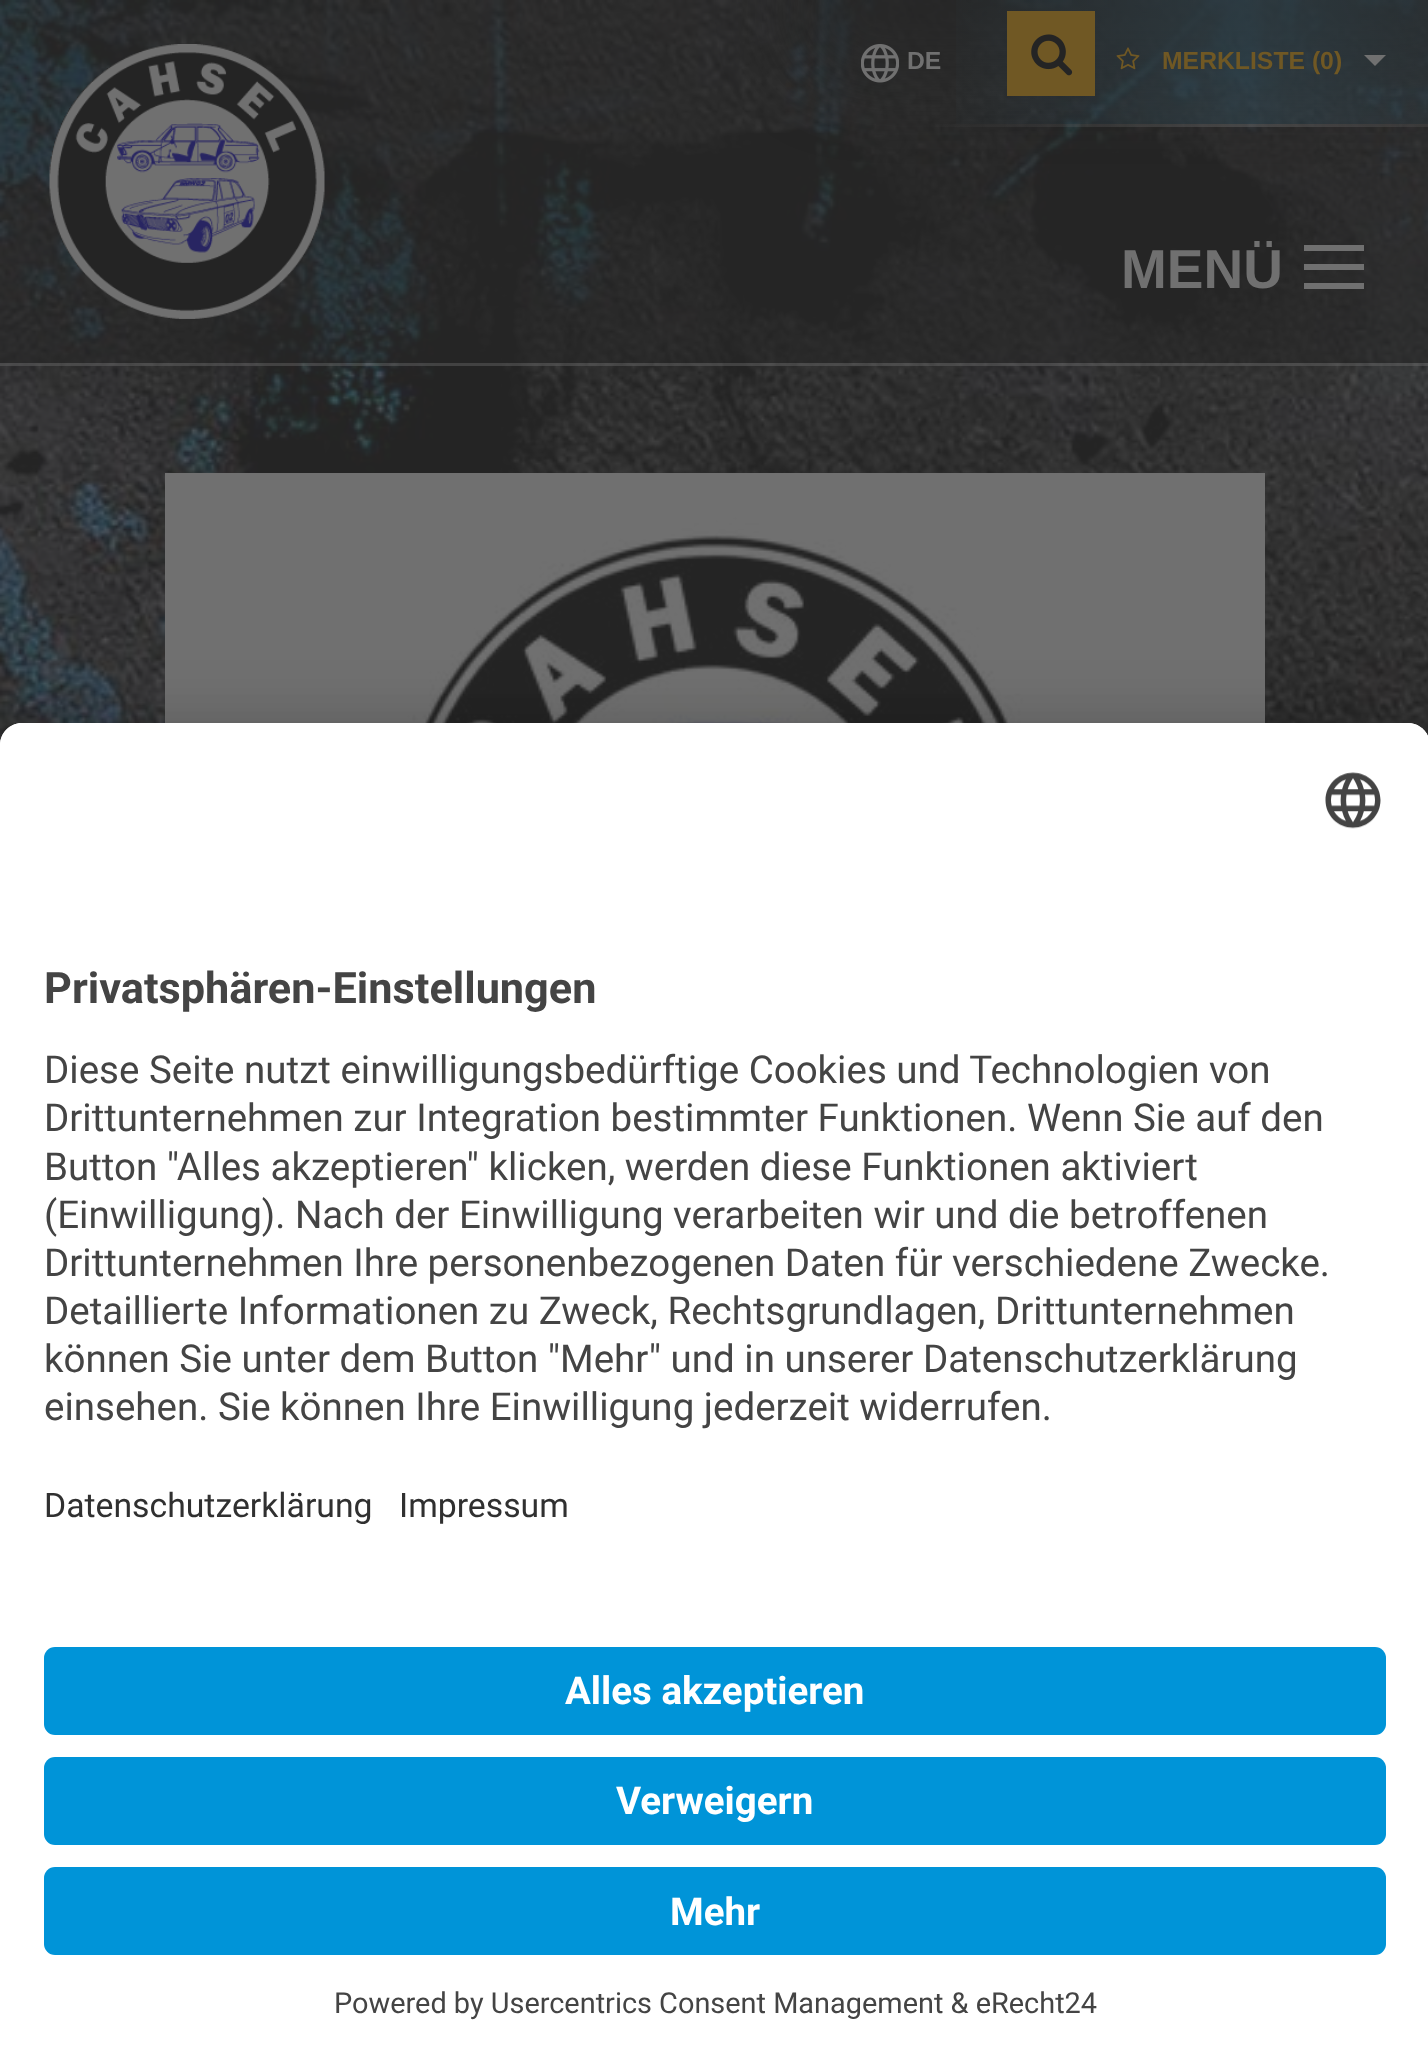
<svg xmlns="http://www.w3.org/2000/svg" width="1428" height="2065">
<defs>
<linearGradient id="g1" gradientUnits="userSpaceOnUse" x1="917" y1="61" x2="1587" y2="61"><stop offset="0" stop-color="#335261" stop-opacity="0"/><stop offset="0.5" stop-color="#335261" stop-opacity="0.4"/><stop offset="1" stop-color="#335261" stop-opacity="0"/></linearGradient>
<linearGradient id="g2" gradientUnits="userSpaceOnUse" x1="917" y1="124" x2="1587" y2="124"><stop offset="0" stop-color="#707070" stop-opacity="0"/><stop offset="0.5" stop-color="#707070" stop-opacity="0.4"/><stop offset="1" stop-color="#707070" stop-opacity="0"/></linearGradient>
</defs>
<rect width="100%" height="100%" fill="#fff"/>
<image x="0" y="0" width="1428" height="745" href="media/1.png"/>
<rect width="1428" height="363" fill="#27272799"/>
<image x="49" y="44" width="276" height="275" href="media/2.png"/>
<rect x="792" y="-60" width="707" height="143" rx="71.5" fill="#272727b3" filter="blur(34.5px)"/>
<image x="861" y="44" width="38" height="39" href="media/3.png"/>
<text x="907" y="69" style="font-family:Liberation Sans;font-size:24.75px;font-weight:bold;fill:#707070">DE</text>
<rect x="956" width="472" height="124" fill="url(#g1)"/>
<rect x="1007" y="11" width="88" height="85" fill="#705824"/>
<image x="1031" y="34" width="42" height="42" href="media/4.png"/>
<image x="1116" y="47" width="24" height="23" href="media/5.png"/>
<text x="1162" y="69" style="font-family:Liberation Sans;font-size:24.75px;font-weight:bold;fill:#705824">MERKLISTE (0)</text>
<path d="M1364 55h22l-11 11z" fill="#707070"/>
<rect x="935" y="124" width="493" height="3" fill="url(#g2)"/>
<text x="1121" y="288" style="font-family:Liberation Sans;font-size:55px;font-weight:bold;fill:#707070">MENÜ</text>
<rect x="1304" y="283" width="60" height="6" fill="#707070"/>
<rect x="1304" y="264" width="60" height="6" fill="#707070"/>
<rect x="1304" y="245" width="60" height="6" fill="#707070"/>
<rect y="363" width="1428" height="3" fill="#70707066"/>
<image x="165" y="473" width="1100" height="250" href="media/6.png"/>
<rect y="778" width="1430" height="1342" rx="22" fill="#0000004d" filter="blur(38.5px)"/>
<rect y="737" width="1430" height="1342" rx="22" fill="#00000038" filter="blur(36px)"/>
<path d="M22 723h1386c12 0 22 10 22 22v1320h-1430v-1320c0-12 10-22 22-22z" fill="#fff"/>
<path d="M22 723h1386c12 0 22 10 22 22v869h-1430v-869c0-12 10-22 22-22z" fill="#fff"/>
<image x="1325" y="772" width="56" height="57" href="media/7.png"/>
<text x="44" y="1003" style="font-family:Roboto;font-size:43.25px;font-weight:bold;fill:#444">Privatsphären-Einstellungen</text>
<text x="44" y="1083" style="font-family:Roboto;font-size:38.5px;fill:#444">Diese Seite nutzt einwilligungsbedürftige Cookies und Technologien von</text>
<text x="44" y="1131" style="font-family:Roboto;font-size:38.5px;fill:#444">Drittunternehmen zur Integration bestimmter Funktionen. Wenn Sie auf den</text>
<text x="44" y="1180" style="font-family:Roboto;font-size:38.5px;fill:#444">Button "Alles akzeptieren" klicken, werden diese Funktionen aktiviert</text>
<text x="44" y="1228" style="font-family:Roboto;font-size:38.5px;fill:#444">(Einwilligung). Nach der Einwilligung verarbeiten wir und die betroffenen</text>
<text x="44" y="1276" style="font-family:Roboto;font-size:38.5px;fill:#444">Drittunternehmen Ihre personenbezogenen Daten für verschiedene Zwecke.</text>
<text x="44" y="1324" style="font-family:Roboto;font-size:38.5px;fill:#444">Detaillierte Informationen zu Zweck, Rechtsgrundlagen, Drittunternehmen</text>
<text x="44" y="1372" style="font-family:Roboto;font-size:38.5px;fill:#444">können Sie unter dem Button "Mehr" und in unserer Datenschutzerklärung</text>
<text x="44" y="1420" style="font-family:Roboto;font-size:38.5px;fill:#444">einsehen. Sie können Ihre Einwilligung jederzeit widerrufen.</text>
<text x="44" y="1517" style="font-family:Roboto;font-size:33.75px;fill:#303030">Datenschutzerklärung</text>
<text x="399" y="1517" style="font-family:Roboto;font-size:33.75px;fill:#303030">Impressum</text>
<rect x="44" y="1647" width="1342" height="88" rx="11" fill="#0094d8"/>
<text x="565" y="1704" style="font-family:Roboto;font-size:38.5px;font-weight:bold;fill:#fff">Alles akzeptieren</text>
<rect x="44" y="1757" width="1342" height="88" rx="11" fill="#0094d8"/>
<text x="616" y="1814" style="font-family:Roboto;font-size:38.5px;font-weight:bold;fill:#fff">Verweigern</text>
<rect x="44" y="1867" width="1342" height="88" rx="11" fill="#0094d8"/>
<text x="670" y="1925" style="font-family:Roboto;font-size:38.5px;font-weight:bold;fill:#fff">Mehr</text>
<text x="334" y="2013" style="font-family:Roboto;font-size:28.9px;fill:#444">Powered by Usercentrics Consent Management &amp; eRecht24</text>
</svg>
